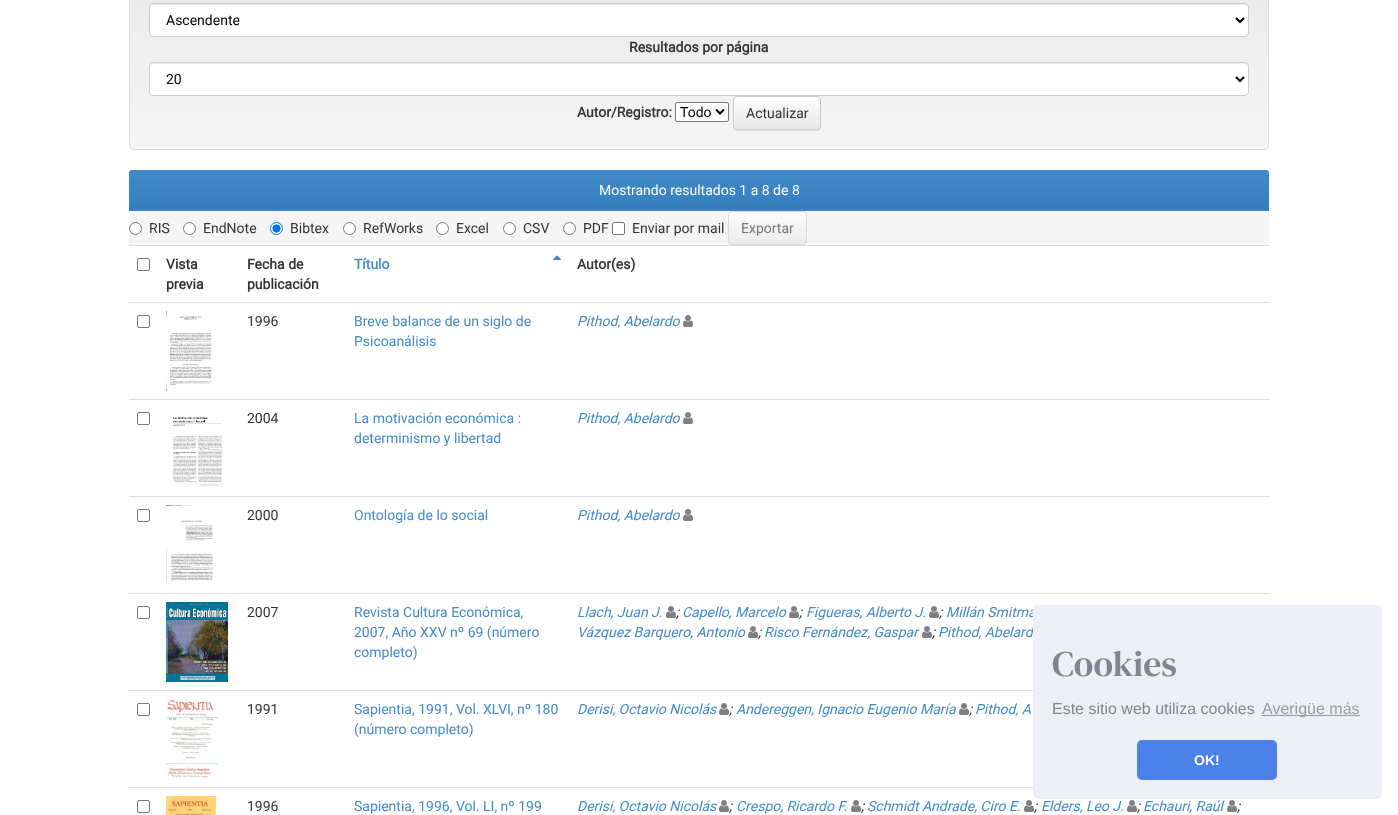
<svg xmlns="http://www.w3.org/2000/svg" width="1398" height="815">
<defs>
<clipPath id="clip1"><rect x="129" y="-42" width="1140" height="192" rx="4"/></clipPath>
<linearGradient id="g1" gradientUnits="userSpaceOnUse" x1="699" y1="-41" x2="699" y2="149"><stop offset="0" stop-color="#e8e8e8"/><stop offset="1" stop-color="#f5f5f5"/></linearGradient>
<clipPath id="clip2"><rect x="733" y="96" width="88" height="34" rx="4"/></clipPath>
<linearGradient id="g2" gradientUnits="userSpaceOnUse" x1="777" y1="97" x2="777" y2="129"><stop offset="0" stop-color="#fff"/><stop offset="1" stop-color="#e6e6e6"/></linearGradient>
<linearGradient id="g3" gradientUnits="userSpaceOnUse" x1="699" y1="170" x2="699" y2="210"><stop offset="0" stop-color="#428bca"/><stop offset="1" stop-color="#357ebd"/></linearGradient>
<clipPath id="clip3"><rect x="728" y="211" width="79" height="34" rx="4"/></clipPath>
<linearGradient id="g4" gradientUnits="userSpaceOnUse" x1="768" y1="212" x2="768" y2="244"><stop offset="0" stop-color="#fcfcfc"/><stop offset="1" stop-color="#ebebeb"/></linearGradient>
</defs>
<rect width="100%" height="100%" fill="#fff"/>
<g clip-path="url(#clip1)">
<rect x="129" width="1140" height="149" fill="url(#g1)"/>
</g>
<rect x="129.5" y="-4.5" width="1139" height="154" rx="3.5" fill="none" stroke="#dcdcdc"/>
<rect x="149" y="3" width="1100" height="34" rx="4" fill="#fff"/>
<path d="M153 5h1092c2 0 3 1 3 3v-1c0-2-1-3-3-3h-1092c-2 0-3 1-3 3v1c0-2 1-3 3-3z" fill="#ececec"/>
<rect x="149.5" y="3.5" width="1099" height="33" rx="3.5" fill="none" stroke="#ccc"/>
<path d="M1236 18l4 4l4-4" fill="none" stroke="#000" stroke-width="2"/>
<text x="166" y="25" style="font-family:Roboto;font-size:14px;fill:#000">Ascendente</text>
<text x="629" y="52" style="font-family:Roboto;font-size:14px;font-weight:bold;fill:#333">Resultados por página</text>
<rect x="149" y="62" width="1100" height="34" rx="4" fill="#fff"/>
<path d="M153 64h1092c2 0 3 1 3 3v-1c0-2-1-3-3-3h-1092c-2 0-3 1-3 3v1c0-2 1-3 3-3z" fill="#ececec"/>
<rect x="149.5" y="62.5" width="1099" height="33" rx="3.5" fill="none" stroke="#ccc"/>
<path d="M1236 77l4 4l4-4" fill="none" stroke="#000" stroke-width="2"/>
<text x="166" y="84" style="font-family:Roboto;font-size:14px;fill:#000">20</text>
<text x="577" y="117" style="font-family:Roboto;font-size:14px;font-weight:bold;fill:#333">Autor/Registro:</text>
<rect x="675.5" y="102.5" width="53" height="19" rx="1.5" fill="#fff" stroke="#767676"/>
<path d="M716 109.5l4 4l4-4" fill="none" stroke="#000" stroke-width="2"/>
<text x="680" y="117" style="font-family:Roboto;font-size:14px;fill:#000">Todo</text>
<rect x="733" y="97" width="88" height="34" rx="4" fill="#00000012" filter="blur(0.5px)"/>
<g clip-path="url(#clip2)">
<rect x="733" y="97" width="88" height="32" fill="url(#g2)"/>
</g>
<rect x="733.5" y="96.5" width="87" height="33" rx="3.5" fill="none" stroke="#ccc"/>
<text x="746" y="118" style="font-family:Roboto;font-size:14px;fill:#333">Actualizar</text>
<path d="M132 170h1134c1.5 0 3 1.5 3 3v38h-1140v-38c0-1.5 1.5-3 3-3z" fill="#428bca"/>
<path d="M132 170h1134c1.5 0 3 1.5 3 3v37h-1140v-37c0-1.5 1.5-3 3-3z" fill="url(#g3)"/>
<text x="599" y="195" style="font-family:Roboto;font-size:14px;fill:#fff">Mostrando resultados 1 a 8 de 8</text>
<rect x="129" y="211" width="1140" height="34" fill="#f5f5f5"/>
<circle cx="135.5" cy="228.5" r="6" fill="#fff" stroke="#767676"/>
<text x="149" y="233" style="font-family:Roboto;font-size:14px;fill:#333">RIS</text>
<circle cx="189.5" cy="228.5" r="6" fill="#fff" stroke="#767676"/>
<text x="203" y="233" style="font-family:Roboto;font-size:14px;fill:#333">EndNote</text>
<circle cx="276.5" cy="228.5" r="6" fill="#fff" stroke="#0075ff"/>
<circle cx="276.5" cy="228.5" r="4" fill="#0075ff"/>
<text x="290" y="233" style="font-family:Roboto;font-size:14px;fill:#333">Bibtex</text>
<circle cx="349.5" cy="228.5" r="6" fill="#fff" stroke="#767676"/>
<text x="363" y="233" style="font-family:Roboto;font-size:14px;fill:#333">RefWorks</text>
<circle cx="442.5" cy="228.5" r="6" fill="#fff" stroke="#767676"/>
<text x="456" y="233" style="font-family:Roboto;font-size:14px;fill:#333">Excel</text>
<circle cx="509.5" cy="228.5" r="6" fill="#fff" stroke="#767676"/>
<text x="523" y="233" style="font-family:Roboto;font-size:14px;fill:#333">CSV</text>
<circle cx="569.5" cy="228.5" r="6" fill="#fff" stroke="#767676"/>
<text x="583" y="233" style="font-family:Roboto;font-size:14px;fill:#333">PDF</text>
<rect x="612.5" y="222.5" width="12" height="12" rx="1.5" fill="#fff" stroke="#767676"/>
<text x="632" y="233" style="font-family:Roboto;font-size:14px;fill:#333">Enviar por mail</text>
<g clip-path="url(#clip3)">
<rect x="728" y="212" width="79" height="32" fill="url(#g4)"/>
</g>
<rect x="728.5" y="211.5" width="78" height="33" rx="3.5" fill="none" stroke="#dadada"/>
<text x="741" y="233" style="font-family:Roboto;font-size:14px;fill:#777">Exportar</text>
<rect x="137.5" y="258.5" width="12" height="12" rx="1.5" fill="none" stroke="#767676"/>
<text x="166" y="269" style="font-family:Roboto;font-size:14px;font-weight:bold;fill:#333">Vista</text>
<text x="166" y="289" style="font-family:Roboto;font-size:14px;font-weight:bold;fill:#333">previa</text>
<text x="247" y="269" style="font-family:Roboto;font-size:14px;font-weight:bold;fill:#333">Fecha de</text>
<text x="247" y="289" style="font-family:Roboto;font-size:14px;font-weight:bold;fill:#333">publicación</text>
<image x="553" y="255" width="8" height="5" href="media/1.png"/>
<text x="354" y="269" style="font-family:Roboto;font-size:14px;font-weight:bold;fill:#428bca">Título</text>
<rect x="129" y="245" width="1141" height="1" fill="#ddd"/>
<text x="577" y="269" style="font-family:Roboto;font-size:14px;font-weight:bold;fill:#333">Autor(es)</text>
<rect x="137.5" y="315.5" width="12" height="12" rx="1.5" fill="none" stroke="#767676"/>
<image x="166" y="311" width="46" height="80" href="media/2.png"/>
<text x="247" y="326" style="font-family:Roboto;font-size:14px;fill:#333">1996</text>
<text x="354" y="326" style="font-family:Roboto;font-size:14px;fill:#428bca">Breve balance de un siglo de</text>
<text x="354" y="346" style="font-family:Roboto;font-size:14px;fill:#428bca">Psicoanálisis</text>
<rect x="129" y="302" width="1141" height="1" fill="#ddd"/>
<text x="577" y="326" style="font-family:Roboto;font-size:14px;font-style:italic;fill:#428bca">Pithod, Abelardo</text>
<image x="683" y="315" width="10" height="12" href="media/3.png"/>
<rect x="137.5" y="412.5" width="12" height="12" rx="1.5" fill="none" stroke="#767676"/>
<image x="173" y="416" width="49" height="70" href="media/4.png"/>
<text x="247" y="423" style="font-family:Roboto;font-size:14px;fill:#333">2004</text>
<text x="354" y="423" style="font-family:Roboto;font-size:14px;fill:#428bca">La motivación económica :</text>
<text x="354" y="443" style="font-family:Roboto;font-size:14px;fill:#428bca">determinismo y libertad</text>
<rect x="129" y="399" width="1141" height="1" fill="#ddd"/>
<text x="577" y="423" style="font-family:Roboto;font-size:14px;font-style:italic;fill:#428bca">Pithod, Abelardo</text>
<image x="683" y="412" width="10" height="12" href="media/3.png"/>
<rect x="137.5" y="509.5" width="12" height="12" rx="1.5" fill="none" stroke="#767676"/>
<image x="166" y="505" width="47" height="79" href="media/5.png"/>
<text x="247" y="520" style="font-family:Roboto;font-size:14px;fill:#333">2000</text>
<text x="354" y="520" style="font-family:Roboto;font-size:14px;fill:#428bca">Ontología de lo social</text>
<rect x="129" y="496" width="1141" height="1" fill="#ddd"/>
<text x="577" y="520" style="font-family:Roboto;font-size:14px;font-style:italic;fill:#428bca">Pithod, Abelardo</text>
<image x="683" y="509" width="10" height="12" href="media/3.png"/>
<rect x="137.5" y="606.5" width="12" height="12" rx="1.5" fill="none" stroke="#767676"/>
<image x="166" y="602" width="62" height="80" href="media/6.png"/>
<text x="247" y="617" style="font-family:Roboto;font-size:14px;fill:#333">2007</text>
<text x="354" y="617" style="font-family:Roboto;font-size:14px;fill:#428bca">Revista Cultura Económica,</text>
<text x="354" y="637" style="font-family:Roboto;font-size:14px;fill:#428bca">2007, Año XXV nº 69 (número</text>
<text x="354" y="657" style="font-family:Roboto;font-size:14px;fill:#428bca">completo)</text>
<rect x="129" y="593" width="1141" height="1" fill="#ddd"/>
<text x="577" y="617" style="font-family:Roboto;font-size:14px;font-style:italic;fill:#428bca">Llach, Juan J.</text>
<image x="666" y="606" width="10" height="12" href="media/3.png"/>
<text x="676" y="617" style="font-family:Roboto;font-size:14px;font-style:italic;fill:#333">;</text>
<text x="682" y="617" style="font-family:Roboto;font-size:14px;font-style:italic;fill:#428bca">Capello, Marcelo</text>
<image x="789" y="606" width="10" height="12" href="media/3.png"/>
<text x="799" y="617" style="font-family:Roboto;font-size:14px;font-style:italic;fill:#333">;</text>
<text x="806" y="617" style="font-family:Roboto;font-size:14px;font-style:italic;fill:#428bca">Figueras, Alberto J.</text>
<image x="929" y="606" width="10" height="12" href="media/3.png"/>
<text x="939" y="617" style="font-family:Roboto;font-size:14px;font-style:italic;fill:#333">;</text>
<text x="946" y="617" style="font-family:Roboto;font-size:14px;font-style:italic;fill:#428bca">Millán Smitma</text>
<text x="577" y="637" style="font-family:Roboto;font-size:14px;font-style:italic;fill:#428bca">Vázquez Barquero, Antonio</text>
<image x="748" y="626" width="10" height="12" href="media/3.png"/>
<text x="758" y="637" style="font-family:Roboto;font-size:14px;font-style:italic;fill:#333">;</text>
<text x="764" y="637" style="font-family:Roboto;font-size:14px;font-style:italic;fill:#428bca">Risco Fernández, Gaspar</text>
<image x="922" y="626" width="10" height="12" href="media/3.png"/>
<text x="932" y="637" style="font-family:Roboto;font-size:14px;font-style:italic;fill:#333">;</text>
<text x="938" y="637" style="font-family:Roboto;font-size:14px;font-style:italic;fill:#428bca">Pithod, Abelard</text>
<rect x="137.5" y="703.5" width="12" height="12" rx="1.5" fill="none" stroke="#767676"/>
<image x="166" y="699" width="52" height="80" href="media/7.png"/>
<text x="247" y="714" style="font-family:Roboto;font-size:14px;fill:#333">1991</text>
<text x="354" y="714" style="font-family:Roboto;font-size:14px;fill:#428bca">Sapientia, 1991, Vol. XLVI, nº 180</text>
<text x="354" y="734" style="font-family:Roboto;font-size:14px;fill:#428bca">(número completo)</text>
<rect x="129" y="690" width="904" height="1" fill="#ddd"/>
<text x="577" y="714" style="font-family:Roboto;font-size:14px;font-style:italic;fill:#428bca">Derisi, Octavio Nicolás</text>
<image x="719" y="703" width="10" height="12" href="media/3.png"/>
<text x="729" y="714" style="font-family:Roboto;font-size:14px;font-style:italic;fill:#333">;</text>
<text x="736" y="714" style="font-family:Roboto;font-size:14px;font-style:italic;fill:#428bca">Andereggen, Ignacio Eugenio María</text>
<image x="959" y="703" width="10" height="12" href="media/3.png"/>
<text x="969" y="714" style="font-family:Roboto;font-size:14px;font-style:italic;fill:#333">;</text>
<text x="975" y="714" style="font-family:Roboto;font-size:14px;font-style:italic;fill:#428bca">Pithod, A</text>
<rect x="137.5" y="800.5" width="12" height="12" rx="1.5" fill="none" stroke="#767676"/>
<image x="166" y="796" width="50" height="19" href="media/8.png"/>
<text x="247" y="811" style="font-family:Roboto;font-size:14px;fill:#333">1996</text>
<text x="354" y="811" style="font-family:Roboto;font-size:14px;fill:#428bca">Sapientia, 1996, Vol. LI, nº 199</text>
<rect x="129" y="787" width="904" height="1" fill="#ddd"/>
<text x="577" y="811" style="font-family:Roboto;font-size:14px;font-style:italic;fill:#428bca">Derisi, Octavio Nicolás</text>
<image x="719" y="800" width="10" height="12" href="media/3.png"/>
<text x="729" y="811" style="font-family:Roboto;font-size:14px;font-style:italic;fill:#333">;</text>
<text x="736" y="811" style="font-family:Roboto;font-size:14px;font-style:italic;fill:#428bca">Crespo, Ricardo F.</text>
<image x="851" y="800" width="10" height="12" href="media/3.png"/>
<text x="861" y="811" style="font-family:Roboto;font-size:14px;font-style:italic;fill:#333">;</text>
<text x="867" y="811" style="font-family:Roboto;font-size:14px;font-style:italic;fill:#428bca">Schmidt Andrade, Ciro E.</text>
<image x="1024" y="800" width="10" height="12" href="media/3.png"/>
<text x="1034" y="811" style="font-family:Roboto;font-size:14px;font-style:italic;fill:#333">;</text>
<text x="1041" y="811" style="font-family:Roboto;font-size:14px;font-style:italic;fill:#428bca">Elders, Leo J.</text>
<image x="1127" y="800" width="10" height="12" href="media/3.png"/>
<text x="1137" y="811" style="font-family:Roboto;font-size:14px;font-style:italic;fill:#333">;</text>
<text x="1143" y="811" style="font-family:Roboto;font-size:14px;font-style:italic;fill:#428bca">Echauri, Raúl</text>
<image x="1227" y="800" width="10" height="12" href="media/3.png"/>
<text x="1237" y="811" style="font-family:Roboto;font-size:14px;font-style:italic;fill:#333">;</text>
<rect x="1033" y="605" width="349" height="194" rx="5" fill="#edeff5"/>
<text x="1052" y="676" style="font-family:DM Serif Text;font-size:36px;fill:#838391">Cookies</text>
<text x="1052" y="714" style="font-family:Liberation Sans;font-size:16px;fill:#838391">Este sitio web utiliza cookies</text>
<rect x="1262" y="715" width="98" height="1" fill="#9899a5"/>
<text x="1262" y="714" style="font-family:Liberation Sans;font-size:16px;fill:#9899a5">Averigüe más</text>
<rect x="1137" y="740" width="140" height="40" rx="5" fill="#4b81e8"/>
<text x="1194" y="765" style="font-family:Liberation Sans;font-size:14px;font-weight:bold;fill:#fff">OK!</text>
</svg>
